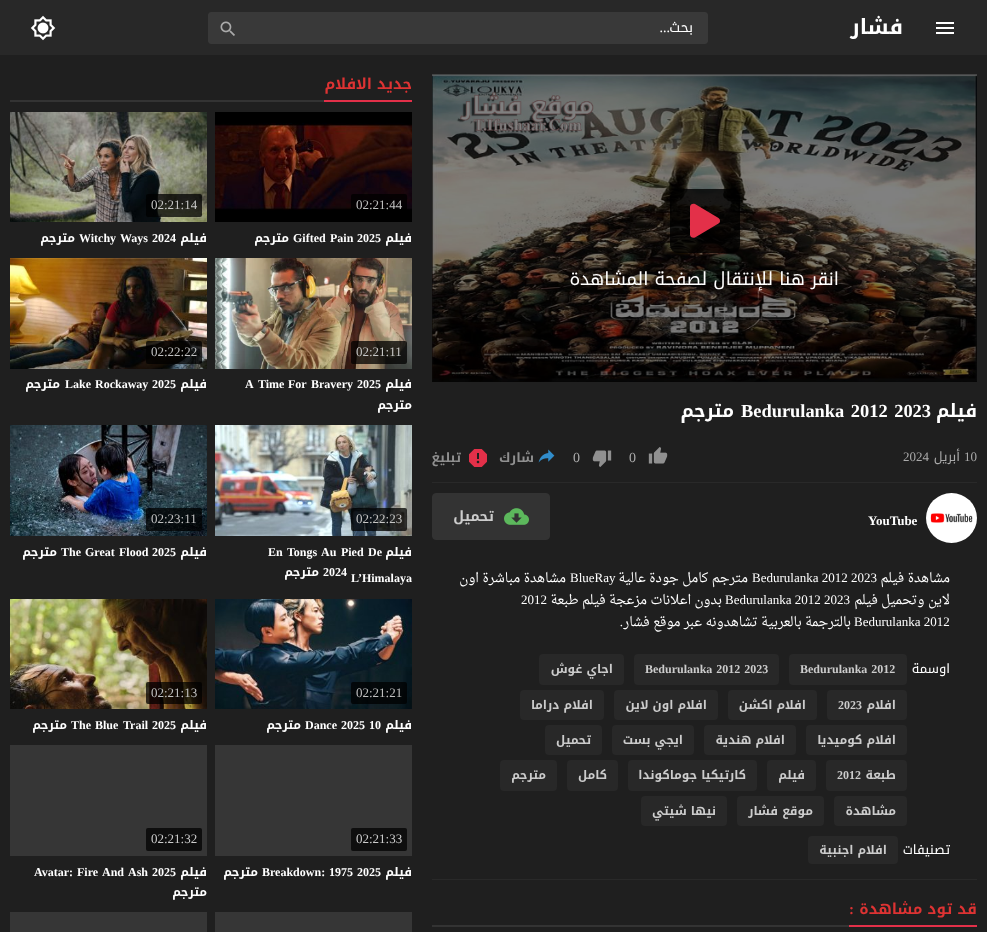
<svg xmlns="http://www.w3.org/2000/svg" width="987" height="932">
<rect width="100%" height="100%" fill="#1f1f1f"/>
<rect width="987" height="55" fill="#282828"/>
<image x="936" y="22" width="18" height="12" href="media/1.png"/>
<text x="903" y="34" style="font-family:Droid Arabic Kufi;font-size:21px;font-weight:bold;direction:rtl;fill:#fff">فشار</text>
<path d="M258 12h447c1.5 0 3 1.5 3 3v26c0 1.5-1.5 3-3 3h-447z" fill="#393939"/>
<text x="693" y="32" style="font-family:Droid Arabic Kufi;font-size:14px;direction:rtl;fill:#fff">بحث</text>
<text x="670" y="32" style="font-family:Liberation Serif;font-size:14px;direction:rtl;fill:#fff">...</text>
<path d="M211 12h47v32h-47c-1.5 0-3-1.5-3-3v-26c0-1.5 1.5-3 3-3z" fill="#393939"/>
<image x="220" y="21" width="15" height="15" href="media/2.png"/>
<image x="30" y="15" width="26" height="26" href="media/3.png"/>
<rect x="432" y="75" width="545" height="307" fill="#000"/>
<image x="432" y="74" width="545" height="308" href="media/4.png"/>
<rect x="670" y="189" width="70" height="64" rx="8" fill="#000000cc"/>
<path d="M718.5 218l-23.5-14c-2-1-5 0-5 3v27.5c0 2.5 2.5 4 5 3l23.5-14c2-1 2-4 0-5.5z" fill="#e33049"/>
<text x="839" y="285" style="font-family:Droid Arabic Kufi;font-size:18px;direction:rtl;fill:#fff">انقر هنا للإنتقال لصفحة المشاهدة</text>
<text x="977" y="417" style="font-family:Droid Arabic Kufi;font-size:18.4px;font-weight:bold;direction:rtl;fill:#fff">فيلم</text>
<text x="741" y="417" word-spacing="2" style="font-family:Liberation Serif;font-size:18.4px;font-weight:bold;fill:#fff">Bedurulanka 2012 2023</text>
<text x="734" y="417" style="font-family:Droid Arabic Kufi;font-size:18.4px;font-weight:bold;direction:rtl;fill:#fff">مترجم</text>
<rect x="432" y="482" width="545" height="1" fill="#292929"/>
<text x="964" y="461" style="font-family:Liberation Serif;font-size:13px;fill:#aaa">10</text>
<text x="960" y="461" style="font-family:Droid Arabic Kufi;font-size:13px;direction:rtl;fill:#aaa">أبريل</text>
<text x="903" y="461" style="font-family:Liberation Serif;font-size:13px;fill:#aaa">2024</text>
<image x="648" y="447" width="20" height="17" href="media/5.png"/>
<text x="629" y="462" style="font-family:Liberation Serif;font-size:14px;fill:#aaa">0</text>
<image x="592" y="450" width="20" height="17" href="media/6.png"/>
<text x="573" y="462" style="font-family:Liberation Serif;font-size:14px;fill:#aaa">0</text>
<image x="538" y="449" width="17" height="14" href="media/7.png"/>
<text x="534" y="462" style="font-family:Droid Arabic Kufi;font-size:13px;font-weight:bold;direction:rtl;fill:#909090">شارك</text>
<image x="469" y="449" width="18" height="18" href="media/8.png"/>
<text x="461" y="462" style="font-family:Droid Arabic Kufi;font-size:13px;font-weight:bold;direction:rtl;fill:#909090">تبليغ</text>
<image x="926" y="493" width="51" height="50" href="media/9.png"/>
<text x="868" y="525" style="font-family:Liberation Serif;font-size:13px;font-weight:bold;fill:#fff">YouTube</text>
<rect x="432.5" y="493.5" width="117" height="46" rx="3.5" fill="#333" stroke="#333"/>
<image x="504" y="508" width="25" height="17" href="media/10.png"/>
<text x="494" y="521" style="font-family:Droid Arabic Kufi;font-size:14px;font-weight:bold;direction:rtl;fill:#ccc">تحميل</text>
<rect x="432" y="879" width="545" height="1" fill="#292929"/>
<text x="950" y="582" style="font-family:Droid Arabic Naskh;font-size:13px;direction:rtl;fill:#fff">مشاهدة فيلم</text>
<text x="752" y="582" style="font-family:Liberation Serif;font-size:13px;fill:#fff">Bedurulanka 2012 2023</text>
<text x="748" y="582" style="font-family:Droid Arabic Naskh;font-size:13px;direction:rtl;fill:#fff">مترجم كامل جودة عالية</text>
<text x="570" y="582" style="font-family:Liberation Serif;font-size:13px;fill:#fff">BlueRay</text>
<text x="566" y="582" style="font-family:Droid Arabic Naskh;font-size:13px;direction:rtl;fill:#fff">مشاهدة مباشرة اون</text>
<text x="950" y="604" style="font-family:Droid Arabic Naskh;font-size:13px;direction:rtl;fill:#fff">لاين وتحميل فيلم</text>
<text x="725" y="604" style="font-family:Liberation Serif;font-size:13px;fill:#fff">Bedurulanka 2012 2023</text>
<text x="722" y="604" style="font-family:Droid Arabic Naskh;font-size:13px;direction:rtl;fill:#fff">بدون اعلانات مزعجة فيلم طبعة</text>
<text x="521" y="604" style="font-family:Liberation Serif;font-size:13px;fill:#fff">2012</text>
<text x="854" y="626" style="font-family:Liberation Serif;font-size:13px;fill:#fff">Bedurulanka 2012</text>
<text x="623" y="626" style="font-family:Liberation Serif;font-size:13px;direction:rtl;fill:#fff">.</text>
<text x="851" y="626" style="font-family:Droid Arabic Naskh;font-size:13px;direction:rtl;fill:#fff">بالترجمة بالعربية تشاهدونه عبر موقع فشار</text>
<text x="950" y="673" style="font-family:Droid Arabic Kufi;font-size:13px;direction:rtl;fill:#fff">اوسمة</text>
<rect x="789" y="654" width="118" height="31" rx="4" fill="#282828"/>
<text x="800" y="673" word-spacing="1" style="font-family:Liberation Serif;font-size:12px;font-weight:bold;fill:#ccc">Bedurulanka 2012</text>
<rect x="634" y="654" width="145" height="31" rx="4" fill="#282828"/>
<text x="645" y="673" word-spacing="1" style="font-family:Liberation Serif;font-size:12px;font-weight:bold;fill:#ccc">Bedurulanka 2012 2023</text>
<rect x="539" y="654" width="85" height="31" rx="4" fill="#282828"/>
<text x="613" y="673" style="font-family:Droid Arabic Kufi;font-size:12px;font-weight:bold;direction:rtl;fill:#ccc">اجاي غوش</text>
<rect x="827" y="690" width="80" height="30" rx="4" fill="#282828"/>
<text x="896" y="709" style="font-family:Droid Arabic Kufi;font-size:12px;font-weight:bold;direction:rtl;fill:#ccc">افلام</text>
<text x="838" y="709" style="font-family:Liberation Serif;font-size:12px;font-weight:bold;fill:#ccc">2023</text>
<rect x="728" y="690" width="89" height="30" rx="4" fill="#282828"/>
<text x="806" y="709" style="font-family:Droid Arabic Kufi;font-size:12px;font-weight:bold;direction:rtl;fill:#ccc">افلام اكشن</text>
<rect x="614" y="690" width="104" height="30" rx="4" fill="#282828"/>
<text x="707" y="709" style="font-family:Droid Arabic Kufi;font-size:12px;font-weight:bold;direction:rtl;fill:#ccc">افلام اون لاين</text>
<rect x="520" y="690" width="84" height="30" rx="4" fill="#282828"/>
<text x="593" y="709" style="font-family:Droid Arabic Kufi;font-size:12px;font-weight:bold;direction:rtl;fill:#ccc">افلام دراما</text>
<rect x="806" y="725" width="101" height="30" rx="4" fill="#282828"/>
<text x="896" y="744" style="font-family:Droid Arabic Kufi;font-size:12px;font-weight:bold;direction:rtl;fill:#ccc">افلام كوميديا</text>
<rect x="704" y="725" width="92" height="30" rx="4" fill="#282828"/>
<text x="785" y="744" style="font-family:Droid Arabic Kufi;font-size:12px;font-weight:bold;direction:rtl;fill:#ccc">افلام هندية</text>
<rect x="612" y="725" width="82" height="30" rx="4" fill="#282828"/>
<text x="683" y="744" style="font-family:Droid Arabic Kufi;font-size:12px;font-weight:bold;direction:rtl;fill:#ccc">ايجي بست</text>
<rect x="545" y="725" width="57" height="30" rx="4" fill="#282828"/>
<text x="591" y="744" style="font-family:Droid Arabic Kufi;font-size:12px;font-weight:bold;direction:rtl;fill:#ccc">تحميل</text>
<rect x="826" y="760" width="81" height="31" rx="4" fill="#282828"/>
<text x="896" y="779" style="font-family:Droid Arabic Kufi;font-size:12px;font-weight:bold;direction:rtl;fill:#ccc">طبعة</text>
<text x="837" y="779" style="font-family:Liberation Serif;font-size:12px;font-weight:bold;fill:#ccc">2012</text>
<rect x="767" y="760" width="49" height="31" rx="4" fill="#282828"/>
<text x="805" y="779" style="font-family:Droid Arabic Kufi;font-size:12px;font-weight:bold;direction:rtl;fill:#ccc">فيلم</text>
<rect x="628" y="760" width="129" height="31" rx="4" fill="#282828"/>
<text x="746" y="779" style="font-family:Droid Arabic Kufi;font-size:12px;font-weight:bold;direction:rtl;fill:#ccc">كارتيكيا جوماكوندا</text>
<rect x="567" y="760" width="51" height="31" rx="4" fill="#282828"/>
<text x="607" y="779" style="font-family:Droid Arabic Kufi;font-size:12px;font-weight:bold;direction:rtl;fill:#ccc">كامل</text>
<rect x="500" y="760" width="57" height="31" rx="4" fill="#282828"/>
<text x="546" y="779" style="font-family:Droid Arabic Kufi;font-size:12px;font-weight:bold;direction:rtl;fill:#ccc">مترجم</text>
<rect x="834" y="796" width="73" height="30" rx="4" fill="#282828"/>
<text x="896" y="815" style="font-family:Droid Arabic Kufi;font-size:12px;font-weight:bold;direction:rtl;fill:#ccc">مشاهدة</text>
<rect x="737" y="796" width="87" height="30" rx="4" fill="#282828"/>
<text x="813" y="815" style="font-family:Droid Arabic Kufi;font-size:12px;font-weight:bold;direction:rtl;fill:#ccc">موقع فشار</text>
<rect x="641" y="796" width="86" height="30" rx="4" fill="#282828"/>
<text x="716" y="815" style="font-family:Droid Arabic Kufi;font-size:12px;font-weight:bold;direction:rtl;fill:#ccc">نيها شيتي</text>
<text x="950" y="854" style="font-family:Droid Arabic Kufi;font-size:13px;direction:rtl;fill:#fff">تصنيفات</text>
<rect x="808" y="836" width="90" height="28" rx="4" fill="#282828"/>
<text x="887" y="854" style="font-family:Droid Arabic Kufi;font-size:12px;font-weight:bold;direction:rtl;fill:#ccc">افلام اجنبية</text>
<rect x="432" y="925" width="417" height="2" fill="#333"/>
<rect x="849" y="925" width="128" height="2" fill="#e33049"/>
<text x="977" y="914" style="font-family:Droid Arabic Kufi;font-size:15px;font-weight:bold;direction:rtl;fill:#d33">قد تود مشاهدة</text>
<text x="854" y="914" style="font-family:Liberation Serif;font-size:15px;font-weight:bold;direction:rtl;fill:#d33">:</text>
<rect x="10" y="100" width="314" height="2" fill="#333"/>
<rect x="324" y="100" width="88" height="2" fill="#e33049"/>
<text x="412" y="89" style="font-family:Droid Arabic Kufi;font-size:15px;font-weight:bold;direction:rtl;fill:#d33">جديد الافلام</text>
<image x="215" y="112" width="197" height="110" href="media/11.png"/>
<rect x="351" y="194" width="56" height="23" rx="2" fill="#000000bf"/>
<text x="356" y="209" style="font-family:Liberation Serif;font-size:13px;fill:#c0c0c0">02:21:44</text>
<text x="412" y="242" style="font-family:Droid Arabic Kufi;font-size:12px;font-weight:bold;direction:rtl;fill:#fff">فيلم</text>
<text x="357" y="242" style="font-family:Liberation Serif;font-size:12px;font-weight:bold;fill:#fff">2025</text>
<text x="330" y="242" style="font-family:Liberation Serif;font-size:12px;font-weight:bold;fill:#fff">Pain</text>
<text x="293" y="242" style="font-family:Liberation Serif;font-size:12px;font-weight:bold;fill:#fff">Gifted</text>
<text x="289" y="242" style="font-family:Droid Arabic Kufi;font-size:12px;font-weight:bold;direction:rtl;fill:#fff">مترجم</text>
<image x="10" y="112" width="197" height="110" href="media/12.png"/>
<rect x="146" y="194" width="56" height="23" rx="2" fill="#000000bf"/>
<text x="151" y="209" style="font-family:Liberation Serif;font-size:13px;fill:#c6c6c5">02:21:14</text>
<text x="207" y="242" style="font-family:Droid Arabic Kufi;font-size:12px;font-weight:bold;direction:rtl;fill:#fff">فيلم</text>
<text x="152" y="242" style="font-family:Liberation Serif;font-size:12px;font-weight:bold;fill:#fff">2024</text>
<text x="120" y="242" style="font-family:Liberation Serif;font-size:12px;font-weight:bold;fill:#fff">Ways</text>
<text x="79" y="242" style="font-family:Liberation Serif;font-size:12px;font-weight:bold;fill:#fff">Witchy</text>
<text x="75" y="242" style="font-family:Droid Arabic Kufi;font-size:12px;font-weight:bold;direction:rtl;fill:#fff">مترجم</text>
<image x="215" y="258" width="197" height="111" href="media/13.png"/>
<rect x="351" y="341" width="56" height="23" rx="2" fill="#000000bf"/>
<text x="356" y="356" style="font-family:Liberation Serif;font-size:13px;fill:#c6c6c5">02:21:11</text>
<text x="412" y="388" style="font-family:Droid Arabic Kufi;font-size:12px;font-weight:bold;direction:rtl;fill:#fff">فيلم</text>
<text x="357" y="388" style="font-family:Liberation Serif;font-size:12px;font-weight:bold;fill:#fff">2025</text>
<text x="311" y="388" style="font-family:Liberation Serif;font-size:12px;font-weight:bold;fill:#fff">Bravery</text>
<text x="288" y="388" style="font-family:Liberation Serif;font-size:12px;font-weight:bold;fill:#fff">For</text>
<text x="258" y="388" style="font-family:Liberation Serif;font-size:12px;font-weight:bold;fill:#fff">Time</text>
<text x="245" y="388" style="font-family:Liberation Serif;font-size:12px;font-weight:bold;fill:#fff">A</text>
<text x="412" y="409" style="font-family:Droid Arabic Kufi;font-size:12px;font-weight:bold;direction:rtl;fill:#fff">مترجم</text>
<image x="10" y="258" width="197" height="111" href="media/14.png"/>
<rect x="146" y="341" width="56" height="23" rx="2" fill="#000000bf"/>
<text x="151" y="356" style="font-family:Liberation Serif;font-size:13px;fill:#c0c0c0">02:22:22</text>
<text x="207" y="388" style="font-family:Droid Arabic Kufi;font-size:12px;font-weight:bold;direction:rtl;fill:#fff">فيلم</text>
<text x="152" y="388" style="font-family:Liberation Serif;font-size:12px;font-weight:bold;fill:#fff">2025</text>
<text x="95" y="388" style="font-family:Liberation Serif;font-size:12px;font-weight:bold;fill:#fff">Rockaway</text>
<text x="65" y="388" style="font-family:Liberation Serif;font-size:12px;font-weight:bold;fill:#fff">Lake</text>
<text x="60" y="388" style="font-family:Droid Arabic Kufi;font-size:12px;font-weight:bold;direction:rtl;fill:#fff">مترجم</text>
<image x="215" y="425" width="197" height="111" href="media/15.png"/>
<rect x="351" y="508" width="56" height="23" rx="2" fill="#000000bf"/>
<text x="356" y="523" style="font-family:Liberation Serif;font-size:13px;fill:#c6c6c5">02:22:23</text>
<text x="412" y="556" style="font-family:Droid Arabic Kufi;font-size:12px;font-weight:bold;direction:rtl;fill:#fff">فيلم</text>
<text x="268" y="556" word-spacing="1.5" style="font-family:Liberation Serif;font-size:12px;font-weight:bold;fill:#fff">En Tongs Au Pied De</text>
<text x="351" y="582" style="font-family:Liberation Serif;font-size:12px;font-weight:bold;fill:#fff">L’Himalaya</text>
<text x="323" y="576" style="font-family:Liberation Serif;font-size:12px;font-weight:bold;fill:#fff">2024</text>
<text x="319" y="576" style="font-family:Droid Arabic Kufi;font-size:12px;font-weight:bold;direction:rtl;fill:#fff">مترجم</text>
<image x="10" y="425" width="197" height="111" href="media/16.png"/>
<rect x="146" y="508" width="56" height="23" rx="2" fill="#000000bf"/>
<text x="151" y="523" style="font-family:Liberation Serif;font-size:13px;fill:#c0c0c0">02:23:11</text>
<text x="207" y="556" style="font-family:Droid Arabic Kufi;font-size:12px;font-weight:bold;direction:rtl;fill:#fff">فيلم</text>
<text x="152" y="556" style="font-family:Liberation Serif;font-size:12px;font-weight:bold;fill:#fff">2025</text>
<text x="119" y="556" style="font-family:Liberation Serif;font-size:12px;font-weight:bold;fill:#fff">Flood</text>
<text x="85" y="556" style="font-family:Liberation Serif;font-size:12px;font-weight:bold;fill:#fff">Great</text>
<text x="61" y="556" style="font-family:Liberation Serif;font-size:12px;font-weight:bold;fill:#fff">The</text>
<text x="57" y="556" style="font-family:Droid Arabic Kufi;font-size:12px;font-weight:bold;direction:rtl;fill:#fff">مترجم</text>
<image x="215" y="599" width="197" height="110" href="media/17.png"/>
<rect x="351" y="682" width="56" height="22" rx="2" fill="#000000bf"/>
<text x="356" y="697" style="font-family:Liberation Serif;font-size:13px;fill:#c0c0c0">02:21:21</text>
<text x="412" y="729" style="font-family:Droid Arabic Kufi;font-size:12px;font-weight:bold;direction:rtl;fill:#fff">فيلم</text>
<text x="369" y="729" style="font-family:Liberation Serif;font-size:12px;font-weight:bold;fill:#fff">10</text>
<text x="341" y="729" style="font-family:Liberation Serif;font-size:12px;font-weight:bold;fill:#fff">2025</text>
<text x="305" y="729" style="font-family:Liberation Serif;font-size:12px;font-weight:bold;fill:#fff">Dance</text>
<text x="301" y="729" style="font-family:Droid Arabic Kufi;font-size:12px;font-weight:bold;direction:rtl;fill:#fff">مترجم</text>
<image x="10" y="599" width="197" height="110" href="media/18.png"/>
<rect x="146" y="682" width="56" height="22" rx="2" fill="#000000bf"/>
<text x="151" y="697" style="font-family:Liberation Serif;font-size:13px;fill:#c0c0c0">02:21:13</text>
<text x="207" y="729" style="font-family:Droid Arabic Kufi;font-size:12px;font-weight:bold;direction:rtl;fill:#fff">فيلم</text>
<text x="152" y="729" style="font-family:Liberation Serif;font-size:12px;font-weight:bold;fill:#fff">2025</text>
<text x="123" y="729" style="font-family:Liberation Serif;font-size:12px;font-weight:bold;fill:#fff">Trail</text>
<text x="95" y="729" style="font-family:Liberation Serif;font-size:12px;font-weight:bold;fill:#fff">Blue</text>
<text x="71" y="729" style="font-family:Liberation Serif;font-size:12px;font-weight:bold;fill:#fff">The</text>
<text x="67" y="729" style="font-family:Droid Arabic Kufi;font-size:12px;font-weight:bold;direction:rtl;fill:#fff">مترجم</text>
<rect x="215" y="745" width="197" height="111" fill="#363636"/>
<rect x="351" y="828" width="56" height="23" rx="2" fill="#0e0e0e"/>
<text x="356" y="843" style="font-family:Liberation Serif;font-size:13px;fill:#ccc">02:21:33</text>
<text x="412" y="876" style="font-family:Droid Arabic Kufi;font-size:12px;font-weight:bold;direction:rtl;fill:#fff">فيلم</text>
<text x="357" y="876" style="font-family:Liberation Serif;font-size:12px;font-weight:bold;fill:#fff">2025</text>
<text x="329" y="876" style="font-family:Liberation Serif;font-size:12px;font-weight:bold;fill:#fff">1975</text>
<text x="262" y="876" style="font-family:Liberation Serif;font-size:12px;font-weight:bold;fill:#fff">Breakdown:</text>
<text x="258" y="876" style="font-family:Droid Arabic Kufi;font-size:12px;font-weight:bold;direction:rtl;fill:#fff">مترجم</text>
<rect x="10" y="745" width="197" height="111" fill="#363636"/>
<rect x="146" y="828" width="56" height="23" rx="2" fill="#0e0e0e"/>
<text x="151" y="843" style="font-family:Liberation Serif;font-size:13px;fill:#ccc">02:21:32</text>
<text x="207" y="876" style="font-family:Droid Arabic Kufi;font-size:12px;font-weight:bold;direction:rtl;fill:#fff">فيلم</text>
<text x="152" y="876" style="font-family:Liberation Serif;font-size:12px;font-weight:bold;fill:#fff">2025</text>
<text x="128" y="876" style="font-family:Liberation Serif;font-size:12px;font-weight:bold;fill:#fff">Ash</text>
<text x="102" y="876" style="font-family:Liberation Serif;font-size:12px;font-weight:bold;fill:#fff">And</text>
<text x="77" y="876" style="font-family:Liberation Serif;font-size:12px;font-weight:bold;fill:#fff">Fire</text>
<text x="34" y="876" style="font-family:Liberation Serif;font-size:12px;font-weight:bold;fill:#fff">Avatar:</text>
<text x="207" y="896" style="font-family:Droid Arabic Kufi;font-size:12px;font-weight:bold;direction:rtl;fill:#fff">مترجم</text>
<rect x="215" y="912" width="197" height="20" fill="#363636"/>
<rect x="10" y="912" width="197" height="20" fill="#363636"/>
</svg>
